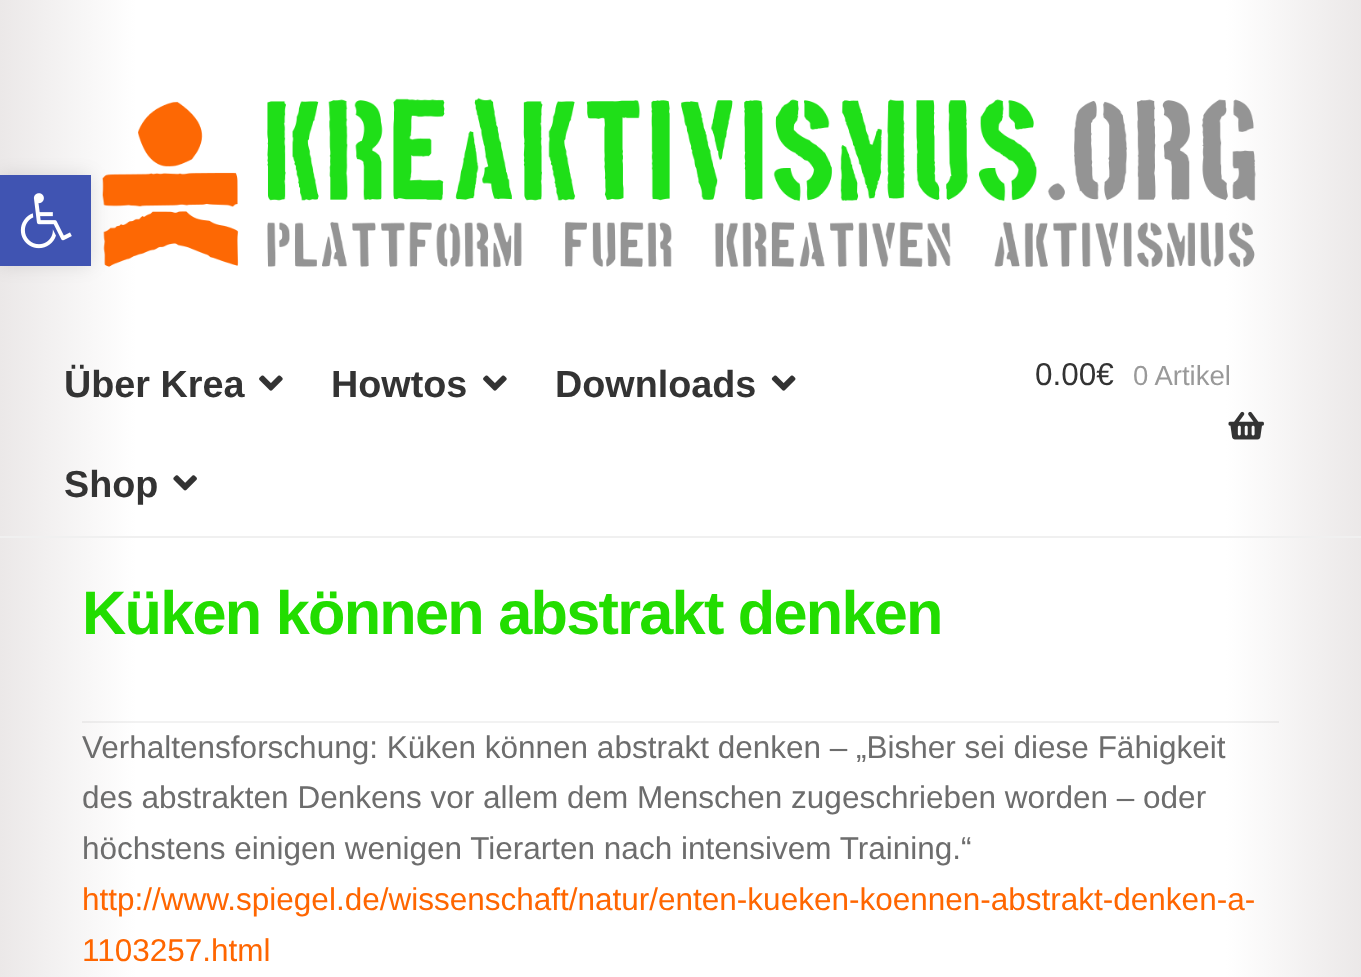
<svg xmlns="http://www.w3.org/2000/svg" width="1361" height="977">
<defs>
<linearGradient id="g1" gradientUnits="userSpaceOnUse" x1="0" y1="268" x2="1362" y2="268"><stop offset="0" stop-color="#ebe8e8"/><stop offset="0.1" stop-color="#fff"/><stop offset="0.9" stop-color="#fff"/><stop offset="1" stop-color="#ebe8e8"/></linearGradient>
<linearGradient id="g2" gradientUnits="userSpaceOnUse" x1="0" y1="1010" x2="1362" y2="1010"><stop offset="0" stop-color="#ebe8e8"/><stop offset="0.1" stop-color="#fff"/><stop offset="0.9" stop-color="#fff"/><stop offset="1" stop-color="#ebe8e8"/></linearGradient>
<linearGradient id="g3" gradientUnits="userSpaceOnUse" x1="0" y1="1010" x2="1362" y2="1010"><stop offset="0" stop-color="#dfdcdc"/><stop offset="0.1" stop-color="#f2f2f2"/><stop offset="0.9" stop-color="#f2f2f2"/><stop offset="1" stop-color="#dfdcdc"/></linearGradient>
</defs>
<rect width="100%" height="100%" fill="#fff"/>
<rect width="1361" height="536" fill="url(#g1)"/>
<image x="102" y="97" width="1154" height="171" href="media/2.png"/>
<rect y="175" width="91" height="91" fill="#0000001a" filter="blur(9px)"/>
<rect y="175" width="91" height="91" fill="#4054b2"/>
<image x="20" y="193" width="52" height="56" href="media/1.png"/>
<rect y="536" width="1361" height="2" fill="#f0f0f0"/>
<text x="64" y="397" style="font-family:Liberation Sans;font-size:37.75px;font-weight:bold;fill:#333">Über Krea</text>
<image x="259" y="375" width="24" height="16" href="media/3.png"/>
<text x="331" y="397" style="font-family:Liberation Sans;font-size:37.75px;font-weight:bold;fill:#333">Howtos</text>
<image x="483" y="375" width="24" height="16" href="media/3.png"/>
<text x="555" y="397" style="font-family:Liberation Sans;font-size:37.75px;font-weight:bold;fill:#333">Downloads</text>
<image x="771" y="375" width="25" height="16" href="media/4.png"/>
<text x="64" y="497" style="font-family:Liberation Sans;font-size:37.75px;font-weight:bold;fill:#333">Shop</text>
<image x="173" y="475" width="24" height="16" href="media/5.png"/>
<text x="1035" y="385" style="font-family:Liberation Sans;font-size:31.5px;fill:#333">0.00€</text>
<text x="1133" y="385" style="font-family:Liberation Sans;font-size:27.5px;fill:#999">0 Artikel</text>
<image x="1228" y="411" width="36" height="29" href="media/6.png"/>
<rect y="538" width="1361" height="439" fill="url(#g2)"/>
<rect x="82" y="721" width="1197" height="2" fill="url(#g3)"/>
<text x="82" y="634" style="font-family:Liberation Sans;font-size:61.25px;font-weight:bold;letter-spacing:-1.75px;fill:#2d0">Küken können abstrakt denken</text>
<text x="82" y="758" style="font-family:Liberation Sans;font-size:31.5px;fill:#6d6d6d">Verhaltensforschung: Küken können abstrakt denken – „Bisher sei diese Fähigkeit</text>
<text x="82" y="808" style="font-family:Liberation Sans;font-size:31.5px;fill:#6d6d6d">des abstrakten Denkens vor allem dem Menschen zugeschrieben worden – oder</text>
<text x="82" y="859" style="font-family:Liberation Sans;font-size:31.5px;fill:#6d6d6d">höchstens einigen wenigen Tierarten nach intensivem Training.“</text>
<text x="82" y="910" style="font-family:Liberation Sans;font-size:31.5px;fill:#f60">http://www.spiegel.de/wissenschaft/natur/enten-kueken-koennen-abstrakt-denken-a-</text>
<text x="82" y="961" style="font-family:Liberation Sans;font-size:31.5px;fill:#f60">1103257.html</text>
</svg>
